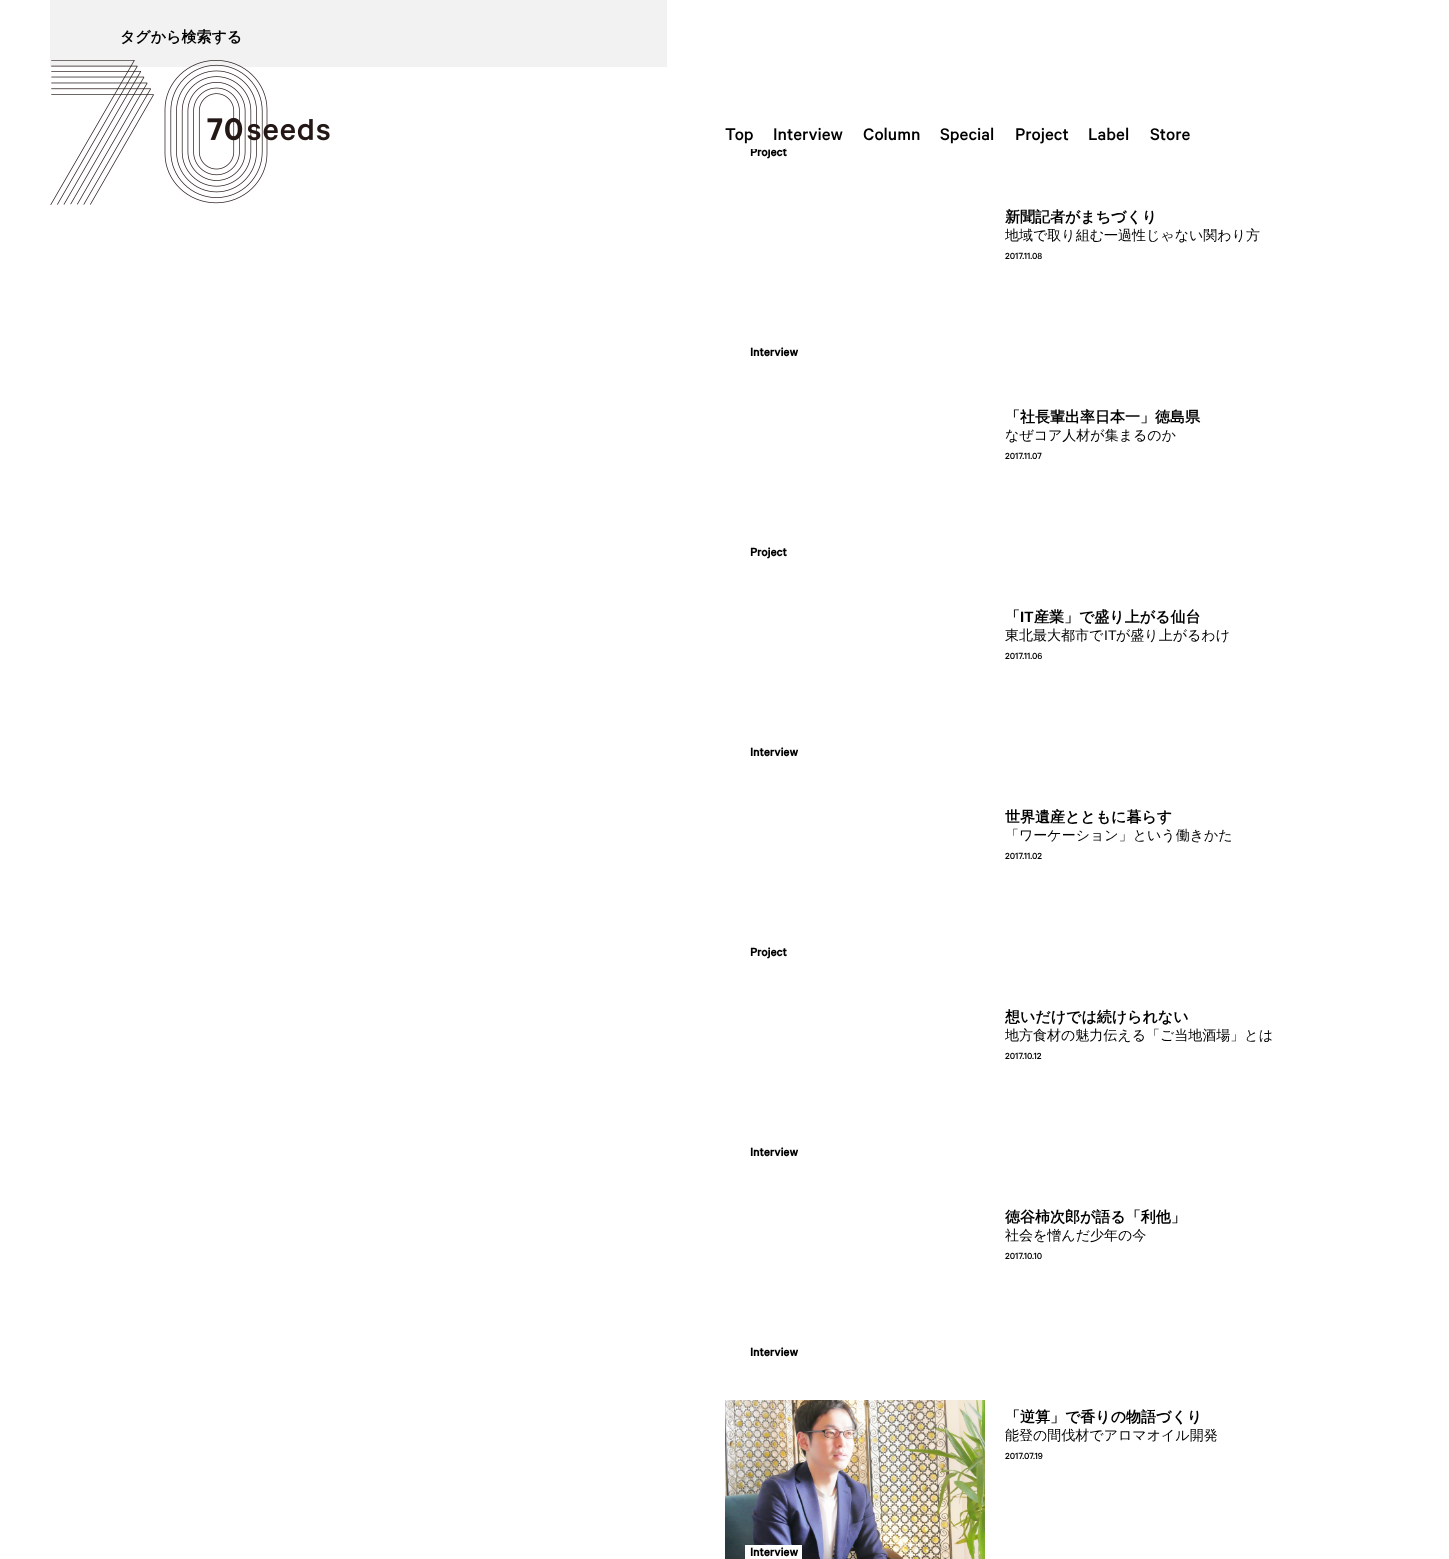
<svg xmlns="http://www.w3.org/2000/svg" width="1449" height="1559">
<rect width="100%" height="100%" fill="#fff"/>
<rect x="50" width="617" height="67" fill="#f2f2f2"/>
<text x="120" y="42" style="font-family:WenQuanYi Zen Hei;font-size:15px;font-weight:bold;fill:#000">タグから検索する</text>
<text x="750" y="156" style="font-family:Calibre;font-size:13px;font-weight:bold;fill:#000">Project</text>
<text x="1005" y="222" style="font-family:WenQuanYi Zen Hei;font-size:15px;font-weight:bold;fill:#000">新聞記者がまちづくり</text>
<text x="1005" y="240" style="font-family:WenQuanYi Zen Hei;font-size:14px;font-weight:500;fill:#000">地域で取り組む一過性じゃない関わり方</text>
<text x="1005" y="259" style="font-family:Calibre;font-size:10px;font-weight:500;fill:#000">2017.11.08</text>
<text x="750" y="356" style="font-family:Calibre;font-size:13px;font-weight:bold;fill:#000">Interview</text>
<text x="1005" y="422" style="font-family:WenQuanYi Zen Hei;font-size:15px;font-weight:bold;fill:#000">「社長輩出率日本一」徳島県</text>
<text x="1005" y="440" style="font-family:WenQuanYi Zen Hei;font-size:14px;font-weight:500;fill:#000">なぜコア人材が集まるのか</text>
<text x="1005" y="459" style="font-family:Calibre;font-size:10px;font-weight:500;fill:#000">2017.11.07</text>
<text x="750" y="556" style="font-family:Calibre;font-size:13px;font-weight:bold;fill:#000">Project</text>
<text x="1005" y="622" style="font-family:WenQuanYi Zen Hei;font-size:15px;font-weight:bold;fill:#000">「</text>
<text x="1020" y="622" style="font-family:Liberation Sans;font-size:15px;font-weight:bold;fill:#000">IT</text>
<text x="1034" y="622" style="font-family:WenQuanYi Zen Hei;font-size:15px;font-weight:bold;fill:#000">産業」で盛り上がる仙台</text>
<text x="1005" y="640" style="font-family:WenQuanYi Zen Hei;font-size:14px;font-weight:500;fill:#000">東北最大都市で</text>
<text x="1104" y="640" style="font-family:Liberation Sans;font-size:14px;fill:#000">IT</text>
<text x="1116" y="640" style="font-family:WenQuanYi Zen Hei;font-size:14px;font-weight:500;fill:#000">が盛り上がるわけ</text>
<text x="1005" y="659" style="font-family:Calibre;font-size:10px;font-weight:500;fill:#000">2017.11.06</text>
<text x="750" y="756" style="font-family:Calibre;font-size:13px;font-weight:bold;fill:#000">Interview</text>
<text x="1005" y="822" style="font-family:WenQuanYi Zen Hei;font-size:15px;font-weight:bold;fill:#000">世界遺産とともに暮らす</text>
<text x="1005" y="840" style="font-family:WenQuanYi Zen Hei;font-size:14px;font-weight:500;fill:#000">「ワーケーション」という働きかた</text>
<text x="1005" y="859" style="font-family:Calibre;font-size:10px;font-weight:500;fill:#000">2017.11.02</text>
<text x="750" y="956" style="font-family:Calibre;font-size:13px;font-weight:bold;fill:#000">Project</text>
<text x="1005" y="1022" style="font-family:WenQuanYi Zen Hei;font-size:15px;font-weight:bold;fill:#000">想いだけでは続けられない</text>
<text x="1005" y="1040" style="font-family:WenQuanYi Zen Hei;font-size:14px;font-weight:500;fill:#000">地方食材の魅力伝える「ご当地酒場」とは</text>
<text x="1005" y="1059" style="font-family:Calibre;font-size:10px;font-weight:500;fill:#000">2017.10.12</text>
<text x="750" y="1156" style="font-family:Calibre;font-size:13px;font-weight:bold;fill:#000">Interview</text>
<text x="1005" y="1222" style="font-family:WenQuanYi Zen Hei;font-size:15px;font-weight:bold;fill:#000">徳谷柿次郎が語る「利他」</text>
<text x="1005" y="1240" style="font-family:WenQuanYi Zen Hei;font-size:14px;font-weight:500;fill:#000">社会を憎んだ少年の今</text>
<text x="1005" y="1259" style="font-family:Calibre;font-size:10px;font-weight:500;fill:#000">2017.10.10</text>
<text x="750" y="1356" style="font-family:Calibre;font-size:13px;font-weight:bold;fill:#000">Interview</text>
<text x="1005" y="1422" style="font-family:WenQuanYi Zen Hei;font-size:15px;font-weight:bold;fill:#000">「逆算」で香りの物語づくり</text>
<text x="1005" y="1440" style="font-family:WenQuanYi Zen Hei;font-size:14px;font-weight:500;fill:#000">能登の間伐材でアロマオイル開発</text>
<text x="1005" y="1459" style="font-family:Calibre;font-size:10px;font-weight:500;fill:#000">2017.07.19</text>
<image x="725" y="1400" width="260" height="159" href="media/1.png"/>
<rect x="745" y="1545" width="57" height="14" fill="#fff"/>
<text x="750" y="1556" style="font-family:Calibre;font-size:13px;font-weight:bold;fill:#000">Interview</text>
<image x="50" y="60" width="280" height="145" href="media/2.png"/>
<rect x="750" y="147" width="35" height="2" fill="#fff"/>
<text x="725" y="140" style="font-family:Calibre;font-size:19px;font-weight:500;fill:#000">Top</text>
<text x="773" y="140" style="font-family:Calibre;font-size:19px;font-weight:500;fill:#000">Interview</text>
<text x="863" y="140" style="font-family:Calibre;font-size:19px;font-weight:500;fill:#000">Column</text>
<text x="940" y="140" style="font-family:Calibre;font-size:19px;font-weight:500;fill:#000">Special</text>
<text x="1015" y="140" style="font-family:Calibre;font-size:19px;font-weight:500;fill:#000">Project</text>
<text x="1088" y="140" style="font-family:Calibre;font-size:19px;font-weight:500;fill:#000">Label</text>
<text x="1150" y="140" style="font-family:Calibre;font-size:19px;font-weight:500;fill:#000">Store</text>
</svg>
